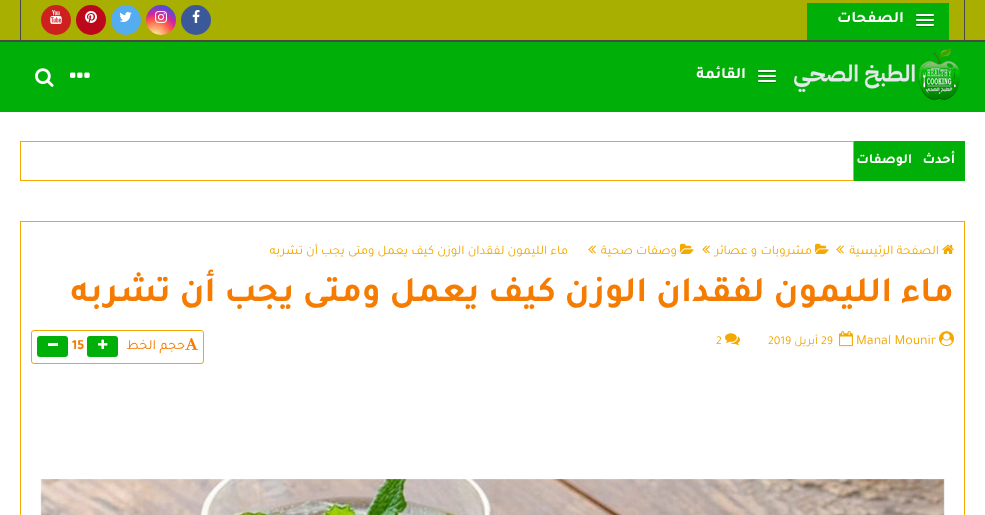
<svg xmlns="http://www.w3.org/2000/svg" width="985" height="515">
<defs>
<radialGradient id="g1" gradientUnits="userSpaceOnUse" cx="155" cy="37" r="38"><stop offset="0" stop-color="#fdf497"/><stop offset="0.05" stop-color="#fdf497"/><stop offset="0.45" stop-color="#fd5949"/><stop offset="0.6" stop-color="#d6249f"/><stop offset="0.9" stop-color="#285aeb"/></radialGradient>
</defs>
<rect width="100%" height="100%" fill="#fff"/>
<rect width="985" height="40" fill="#a9af00"/>
<rect y="40" width="985" height="2" fill="#484848"/>
<rect x="964" width="1" height="40" fill="#484848"/>
<rect x="20" width="1" height="40" fill="#484848"/>
<rect x="807" y="3" width="142" height="37" fill="#00af07"/>
<path d="M916 15.5c-1 2 3.5 1.5 3.5 1.5h11c0 0 4.5 .5 3.5-1.5c-1 1-7.5 .5-9 .5c-1.5 0-8 .5-9-.5z" fill="#008305"/>
<rect x="916" y="14" width="18" height="2" rx="1" fill="#fff"/>
<path d="M916 20.5c-1 2 3.5 1.5 3.5 1.5h11c0 0 4.5 .5 3.5-1.5c-1 1-7.5 .5-9 .5c-1.5 0-8 .5-9-.5z" fill="#008305"/>
<rect x="916" y="19" width="18" height="2" rx="1" fill="#fff"/>
<path d="M916 25.5c-1 2 3.5 1.5 3.5 1.5h11c0 0 4.5 .5 3.5-1.5c-1 1-7.5 .5-9 .5c-1.5 0-8 .5-9-.5z" fill="#008305"/>
<rect x="916" y="24" width="18" height="2" rx="1" fill="#fff"/>
<text x="904" y="22" style="font-family:Tajawal;font-size:16px;font-weight:bold;direction:rtl;fill:#fff">الصفحات</text>
<circle cx="196" cy="20" r="15" fill="#3b5999"/>
<image x="192" y="10" width="8" height="13" href="media/1.png"/>
<circle cx="161" cy="20" r="15" fill="url(#g1)"/>
<image x="155" y="11" width="12" height="12" href="media/2.png"/>
<circle cx="126" cy="20" r="15" fill="#55acee"/>
<image x="119" y="12" width="13" height="10" href="media/3.png"/>
<circle cx="91" cy="20" r="15" fill="#bd081c"/>
<image x="85" y="11" width="12" height="12" href="media/4.png"/>
<circle cx="56" cy="20" r="15" fill="#cd201f"/>
<image x="50" y="10" width="12" height="14" href="media/5.png"/>
<rect y="42" width="985" height="70" fill="#00af07"/>
<image x="793" y="47" width="168" height="54" href="media/6.png"/>
<path d="M758 71.5c-1 2 3.5 1.5 3.5 1.5h11c0 0 4.5 .5 3.5-1.5c-1 1-7.5 .5-9 .5c-1.5 0-8 .5-9-.5z" fill="#008305"/>
<rect x="758" y="70" width="18" height="2" rx="1" fill="#fff"/>
<path d="M758 76.5c-1 2 3.5 1.5 3.5 1.5h11c0 0 4.5 .5 3.5-1.5c-1 1-7.5 .5-9 .5c-1.5 0-8 .5-9-.5z" fill="#008305"/>
<rect x="758" y="75" width="18" height="2" rx="1" fill="#fff"/>
<path d="M758 81.5c-1 2 3.5 1.5 3.5 1.5h11c0 0 4.5 .5 3.5-1.5c-1 1-7.5 .5-9 .5c-1.5 0-8 .5-9-.5z" fill="#008305"/>
<rect x="758" y="80" width="18" height="2" rx="1" fill="#fff"/>
<text x="746" y="78" style="font-family:Tajawal;font-size:16px;font-weight:bold;direction:rtl;fill:#fff">القائمة</text>
<image x="70" y="72" width="20" height="6" href="media/7.png"/>
<image x="35" y="68" width="19" height="19" href="media/8.png"/>
<rect x="854" y="141" width="111" height="40" fill="#00af07"/>
<text x="955" y="163" word-spacing="7" style="font-family:Tajawal;font-size:14px;font-weight:bold;letter-spacing:-0.5px;direction:rtl;fill:#fff">أحدث الوصفات</text>
<rect x="20.5" y="141.5" width="833" height="39" fill="none" stroke="#f4a900"/>
<rect x="20.5" y="221.5" width="944" height="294" fill="none" stroke="#f4a900"/>
<image x="942" y="244" width="12" height="10" href="media/9.png"/>
<text x="939" y="254" style="font-family:Tajawal;font-size:13px;direction:rtl;fill:#f4a900">الصفحة الرئيسية</text>
<image x="836" y="245" width="8" height="9" href="media/10.png"/>
<image x="815" y="243" width="14" height="11" href="media/11.png"/>
<text x="812" y="254" style="font-family:Tajawal;font-size:13px;direction:rtl;fill:#f4a900">مشروبات و عصائر</text>
<image x="702" y="245" width="8" height="9" href="media/10.png"/>
<image x="680" y="243" width="14" height="11" href="media/11.png"/>
<text x="677" y="254" style="font-family:Tajawal;font-size:13px;direction:rtl;fill:#f4a900">وصفات صحية</text>
<image x="588" y="245" width="8" height="9" href="media/10.png"/>
<text x="568" y="254" style="font-family:Tajawal;font-size:13px;direction:rtl;fill:#f4a900">ماء الليمون لفقدان الوزن كيف يعمل ومتى يجب أن تشربه</text>
<text x="954" y="301" style="font-family:Tajawal;font-size:36px;font-weight:bold;direction:rtl;fill:#f57c00">ماء الليمون لفقدان الوزن كيف يعمل ومتى يجب أن تشربه</text>
<image x="939" y="331" width="15" height="16" href="media/12.png"/>
<text x="856" y="344" style="font-family:Tajawal;font-size:14px;fill:#f4a900">Manal Mounir</text>
<image x="839" y="331" width="14" height="16" href="media/13.png"/>
<text x="821" y="344" style="font-family:Tajawal;font-size:12px;fill:#f4a900">29</text>
<text x="818" y="344" style="font-family:Tajawal;font-size:12px;direction:rtl;fill:#f4a900">أبريل</text>
<text x="768" y="344" style="font-family:Tajawal;font-size:12px;fill:#f4a900">2019</text>
<image x="725" y="333" width="15" height="12" href="media/14.png"/>
<text x="716" y="344" style="font-family:Tajawal;font-size:12px;fill:#f4a900">2</text>
<rect x="31.5" y="330.5" width="172" height="33" rx="2.5" fill="none" stroke="#f4a900"/>
<image x="185" y="338" width="13" height="12" href="media/15.png"/>
<text x="185" y="349" style="font-family:Tajawal;font-size:14px;direction:rtl;fill:#f57c00">حجم الخط</text>
<rect x="87" y="336" width="31" height="21" rx="3" fill="#00af07"/>
<image x="98" y="339" width="10" height="10" href="media/16.png"/>
<text x="72" y="349" style="font-family:Tajawal;font-size:14px;font-weight:bold;fill:#f57c00">15</text>
<rect x="37" y="336" width="31" height="21" rx="3" fill="#00af07"/>
<rect x="48" y="343" width="10" height="3" fill="#fff"/>
<image x="40" y="479" width="905" height="36" href="media/17.png"/>
</svg>
